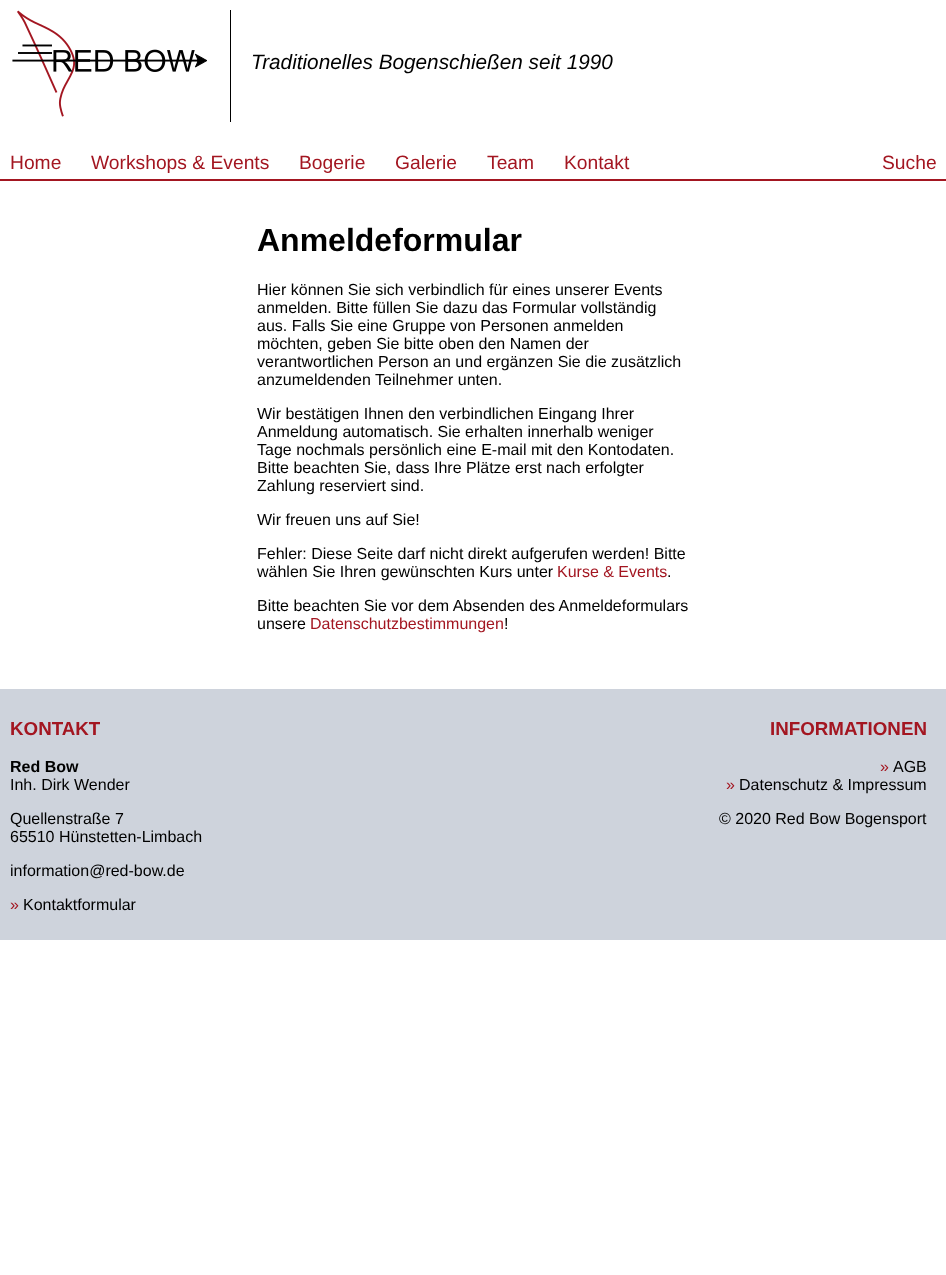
<svg xmlns="http://www.w3.org/2000/svg" width="946" height="1275">
<rect width="100%" height="100%" fill="#fff"/>
<rect x="230" y="10" width="1" height="112" fill="#000"/>
<image x="12" y="10" width="195" height="107" href="media/1.png"/>
<text x="251" y="69" style="font-family:Liberation Sans;font-size:20.75px;font-style:italic;fill:#000">Traditionelles Bogenschießen seit 1990</text>
<rect y="179" width="946" height="2" fill="#a31621"/>
<text x="10" y="169" style="font-family:Liberation Sans;font-size:19.25px;fill:#a31621">Home</text>
<text x="91" y="169" style="font-family:Liberation Sans;font-size:19.25px;fill:#a31621">Workshops &amp; Events</text>
<text x="299" y="169" style="font-family:Liberation Sans;font-size:19.25px;fill:#a31621">Bogerie</text>
<text x="395" y="169" style="font-family:Liberation Sans;font-size:19.25px;fill:#a31621">Galerie</text>
<text x="487" y="169" style="font-family:Liberation Sans;font-size:19.25px;fill:#a31621">Team</text>
<text x="564" y="169" style="font-family:Liberation Sans;font-size:19.25px;fill:#a31621">Kontakt</text>
<text x="882" y="169" style="font-family:Liberation Sans;font-size:19.25px;fill:#a31621">Suche</text>
<text x="257" y="251" style="font-family:Liberation Sans;font-size:32px;font-weight:bold;fill:#000">Anmeldeformular</text>
<text x="257" y="295" style="font-family:Liberation Sans;font-size:16px;fill:#000">Hier können Sie sich verbindlich für eines unserer Events</text>
<text x="257" y="313" style="font-family:Liberation Sans;font-size:16px;fill:#000">anmelden. Bitte füllen Sie dazu das Formular vollständig</text>
<text x="257" y="331" style="font-family:Liberation Sans;font-size:16px;fill:#000">aus. Falls Sie eine Gruppe von Personen anmelden</text>
<text x="257" y="349" style="font-family:Liberation Sans;font-size:16px;fill:#000">möchten, geben Sie bitte oben den Namen der</text>
<text x="257" y="367" style="font-family:Liberation Sans;font-size:16px;fill:#000">verantwortlichen Person an und ergänzen Sie die zusätzlich</text>
<text x="257" y="385" style="font-family:Liberation Sans;font-size:16px;fill:#000">anzumeldenden Teilnehmer unten.</text>
<text x="257" y="419" style="font-family:Liberation Sans;font-size:16px;fill:#000">Wir bestätigen Ihnen den verbindlichen Eingang Ihrer</text>
<text x="257" y="437" style="font-family:Liberation Sans;font-size:16px;fill:#000">Anmeldung automatisch. Sie erhalten innerhalb weniger</text>
<text x="257" y="455" style="font-family:Liberation Sans;font-size:16px;fill:#000">Tage nochmals persönlich eine E-mail mit den Kontodaten.</text>
<text x="257" y="473" style="font-family:Liberation Sans;font-size:16px;fill:#000">Bitte beachten Sie, dass Ihre Plätze erst nach erfolgter</text>
<text x="257" y="491" style="font-family:Liberation Sans;font-size:16px;fill:#000">Zahlung reserviert sind.</text>
<text x="257" y="525" style="font-family:Liberation Sans;font-size:16px;fill:#000">Wir freuen uns auf Sie!</text>
<text x="257" y="559" style="font-family:Liberation Sans;font-size:16px;fill:#000">Fehler: Diese Seite darf nicht direkt aufgerufen werden! Bitte</text>
<text x="257" y="577" style="font-family:Liberation Sans;font-size:16px;fill:#000">wählen Sie Ihren gewünschten Kurs unter</text>
<text x="557" y="577" style="font-family:Liberation Sans;font-size:16px;fill:#a31621">Kurse &amp; Events</text>
<text x="667" y="577" style="font-family:Liberation Sans;font-size:16px;fill:#000">.</text>
<text x="257" y="611" style="font-family:Liberation Sans;font-size:16px;fill:#000">Bitte beachten Sie vor dem Absenden des Anmeldeformulars</text>
<text x="257" y="629" style="font-family:Liberation Sans;font-size:16px;fill:#000">unsere</text>
<text x="310" y="629" style="font-family:Liberation Sans;font-size:16px;fill:#a31621">Datenschutzbestimmungen</text>
<text x="504" y="629" style="font-family:Liberation Sans;font-size:16px;fill:#000">!</text>
<rect y="689" width="946" height="251" fill="#ced3dc"/>
<text x="10" y="735" style="font-family:Liberation Sans;font-size:18.75px;font-weight:bold;fill:#a31621">KONTAKT</text>
<text x="10" y="772" style="font-family:Liberation Sans;font-size:16px;font-weight:bold;fill:#000">Red Bow</text>
<text x="10" y="790" style="font-family:Liberation Sans;font-size:16px;fill:#000">Inh. Dirk Wender</text>
<text x="10" y="824" style="font-family:Liberation Sans;font-size:16px;fill:#000">Quellenstraße 7</text>
<text x="10" y="842" style="font-family:Liberation Sans;font-size:16px;fill:#000">65510 Hünstetten-Limbach</text>
<text x="10" y="876" style="font-family:Liberation Sans;font-size:16px;fill:#000">information@red-bow.de</text>
<text x="10" y="910" style="font-family:Liberation Sans;font-size:16px;fill:#a31621">»</text>
<text x="23" y="910" style="font-family:Liberation Sans;font-size:16px;fill:#000">Kontaktformular</text>
<text x="770" y="735" style="font-family:Liberation Sans;font-size:18.75px;font-weight:bold;fill:#a31621">INFORMATIONEN</text>
<text x="880" y="772" style="font-family:Liberation Sans;font-size:16px;fill:#a31621">»</text>
<text x="893" y="772" style="font-family:Liberation Sans;font-size:16px;fill:#000">AGB</text>
<text x="726" y="790" style="font-family:Liberation Sans;font-size:16px;fill:#a31621">»</text>
<text x="739" y="790" style="font-family:Liberation Sans;font-size:16px;fill:#000">Datenschutz &amp; Impressum</text>
<text x="719" y="824" style="font-family:Liberation Sans;font-size:16px;fill:#000">© 2020 Red Bow Bogensport</text>
</svg>
